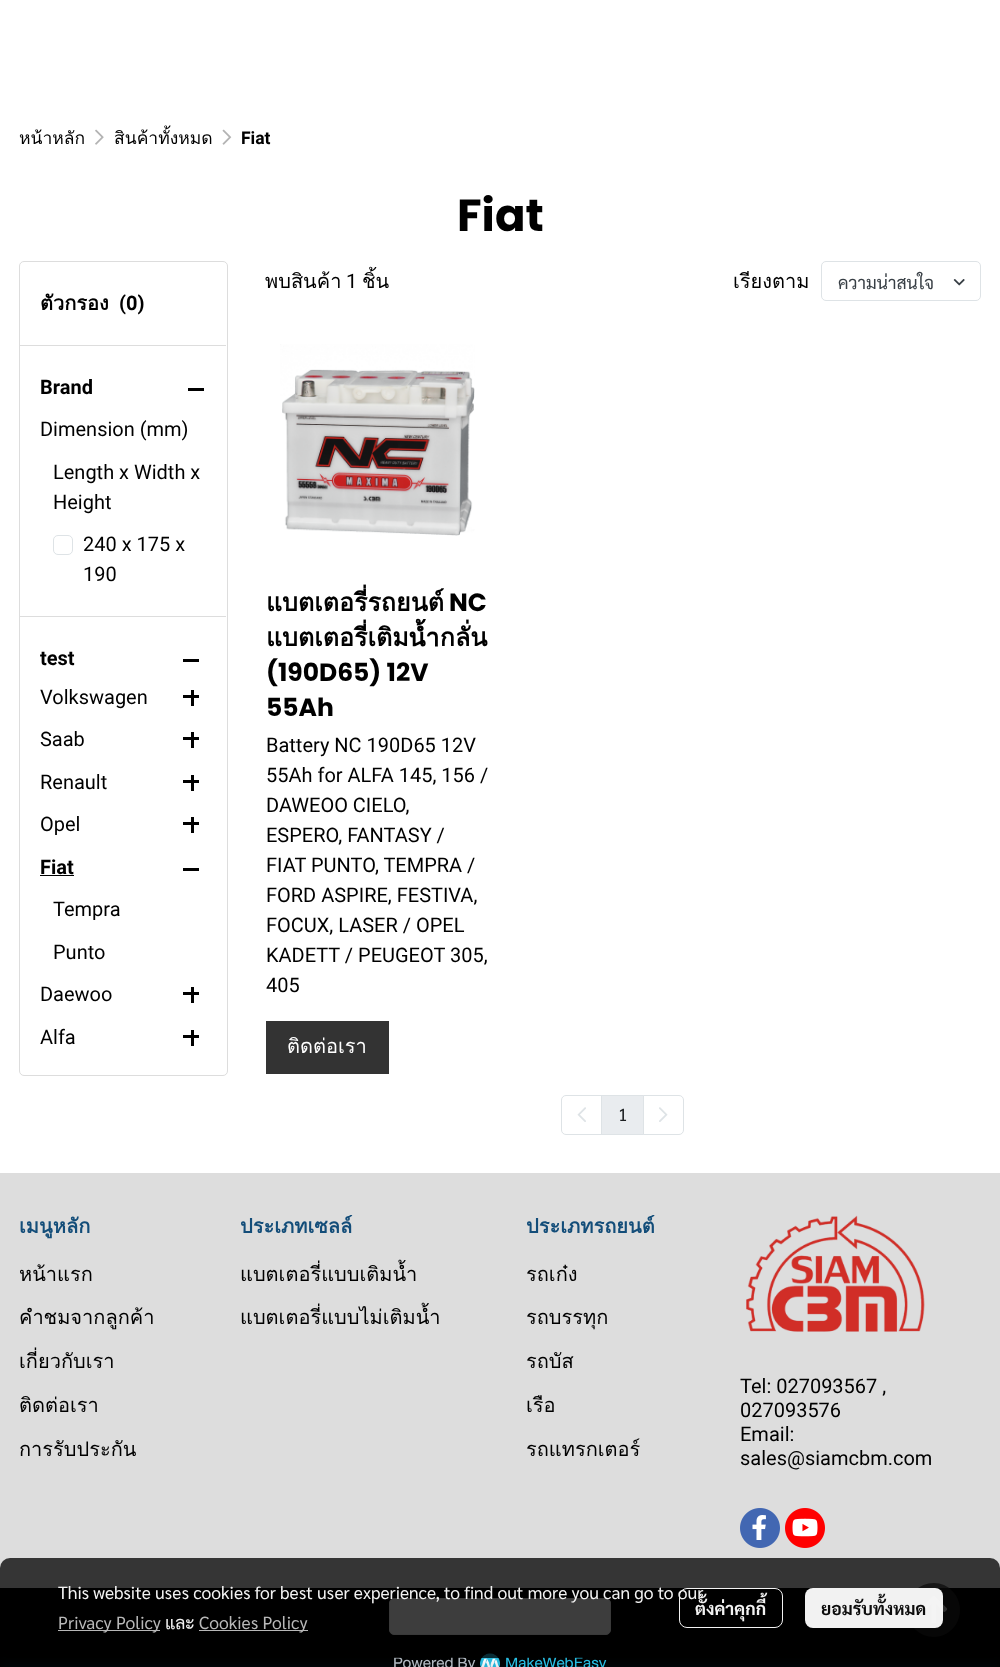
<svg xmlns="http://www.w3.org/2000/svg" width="1000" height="1667">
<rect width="100%" height="100%" fill="#fff"/>
<text x="19" y="144" style="font-family:Loma;font-size:17.5px;fill:#000">หน้าหลัก</text>
<image x="95" y="129" width="9" height="16" href="media/1.png"/>
<text x="114" y="144" style="font-family:Loma;font-size:17.5px;fill:#000">สินค้าทั้งหมด</text>
<image x="222" y="129" width="10" height="16" href="media/2.png"/>
<text x="241" y="144" style="font-family:Roboto;font-size:17.5px;font-weight:bold;fill:#000">Fiat</text>
<text x="457" y="231" style="font-family:Poppins;font-size:45px;font-weight:bold;fill:#000">Fiat</text>
<rect x="19.5" y="261.5" width="208" height="814" rx="4.5" fill="none" stroke="#ddd"/>
<rect x="20" y="345" width="206" height="1" fill="#ddd"/>
<text x="40" y="310" style="font-family:Loma;font-size:20px;font-weight:bold;fill:#000">ตัวกรอง</text>
<text x="119" y="310" style="font-family:Roboto;font-size:20px;font-weight:bold;fill:#000">(0)</text>
<rect x="20" y="616" width="206" height="1" fill="#ddd"/>
<text x="40" y="394" style="font-family:Roboto;font-size:20px;font-weight:bold;fill:#000">Brand</text>
<rect x="188" y="388" width="16" height="3" fill="#000"/>
<text x="40" y="436" style="font-family:Roboto;font-size:20px;fill:#000">Dimension (mm)</text>
<text x="53" y="479" style="font-family:Roboto;font-size:20px;fill:#000">Length x Width x</text>
<text x="53" y="509" style="font-family:Roboto;font-size:20px;fill:#000">Height</text>
<rect x="53.5" y="535.5" width="19" height="19" rx="4.5" fill="none" stroke="#dee3e6"/>
<text x="83" y="551" style="font-family:Roboto;font-size:20px;fill:#000">240 x 175 x</text>
<text x="83" y="581" style="font-family:Roboto;font-size:20px;fill:#000">190</text>
<text x="40" y="665" style="font-family:Roboto;font-size:20px;font-weight:bold;fill:#000">test</text>
<rect x="183" y="659" width="16" height="3" fill="#000"/>
<text x="40" y="704" style="font-family:Roboto;font-size:20px;fill:#000">Volkswagen</text>
<rect x="183" y="695" width="16" height="3" fill="#000"/>
<rect x="191" y="690" width="3" height="16" fill="#000"/>
<text x="40" y="746" style="font-family:Roboto;font-size:20px;fill:#000">Saab</text>
<rect x="183" y="737" width="16" height="3" fill="#000"/>
<rect x="191" y="732" width="3" height="16" fill="#000"/>
<text x="40" y="789" style="font-family:Roboto;font-size:20px;fill:#000">Renault</text>
<rect x="183" y="780" width="16" height="3" fill="#000"/>
<rect x="191" y="775" width="3" height="16" fill="#000"/>
<text x="40" y="831" style="font-family:Roboto;font-size:20px;fill:#000">Opel</text>
<rect x="183" y="822" width="16" height="3" fill="#000"/>
<rect x="191" y="817" width="3" height="16" fill="#000"/>
<text x="40" y="874" style="font-family:Roboto;font-size:20px;font-weight:bold;fill:#000">Fiat</text>
<rect x="40" y="875" width="34" height="1" fill="#000"/>
<rect x="183" y="868" width="16" height="3" fill="#000"/>
<text x="53" y="916" style="font-family:Roboto;font-size:20px;fill:#000">Tempra</text>
<text x="53" y="959" style="font-family:Roboto;font-size:20px;fill:#000">Punto</text>
<text x="40" y="1001" style="font-family:Roboto;font-size:20px;fill:#000">Daewoo</text>
<rect x="183" y="992" width="16" height="3" fill="#000"/>
<rect x="191" y="987" width="3" height="16" fill="#000"/>
<text x="40" y="1044" style="font-family:Roboto;font-size:20px;fill:#000">Alfa</text>
<rect x="183" y="1035" width="16" height="3" fill="#000"/>
<rect x="191" y="1030" width="3" height="16" fill="#000"/>
<text x="265" y="288" style="font-family:Loma;font-size:20px;fill:#000">พบสินค้า</text>
<text x="346" y="288" style="font-family:Roboto;font-size:20px;fill:#000">1</text>
<text x="362" y="288" style="font-family:Loma;font-size:20px;fill:#000">ชิ้น</text>
<text x="733" y="288" style="font-family:Loma;font-size:20px;fill:#000">เรียงตาม</text>
<rect x="821.5" y="261.5" width="159" height="39" rx="4.5" fill="none" stroke="#dee3e6"/>
<text x="838" y="289" style="font-family:Sarabun;font-size:17.5px;fill:#373e44">ความน่าสนใจ</text>
<image x="953" y="279" width="12" height="7" href="media/3.png"/>
<image x="280" y="344" width="195" height="192" href="media/4.png"/>
<text x="266" y="611" style="font-family:Loma;font-size:25px;font-weight:bold;fill:#000">แบตเตอรี่รถยนต์</text>
<text x="449" y="611" style="font-family:Poppins;font-size:25px;font-weight:bold;fill:#000">NC</text>
<text x="266" y="646" style="font-family:Loma;font-size:25px;font-weight:bold;fill:#000">แบตเตอรี่เติมน้ำกลั่น</text>
<text x="266" y="681" style="font-family:Poppins;font-size:25px;font-weight:bold;fill:#000">(190D65) 12V</text>
<text x="266" y="716" style="font-family:Poppins;font-size:25px;font-weight:bold;fill:#000">55Ah</text>
<text x="266" y="752" style="font-family:Roboto;font-size:20px;fill:#000">Battery NC 190D65 12V</text>
<text x="266" y="782" style="font-family:Roboto;font-size:20px;fill:#000">55Ah for ALFA 145, 156 /</text>
<text x="266" y="812" style="font-family:Roboto;font-size:20px;fill:#000">DAWEOO CIELO,</text>
<text x="266" y="842" style="font-family:Roboto;font-size:20px;fill:#000">ESPERO, FANTASY /</text>
<text x="266" y="872" style="font-family:Roboto;font-size:20px;fill:#000">FIAT PUNTO, TEMPRA /</text>
<text x="266" y="902" style="font-family:Roboto;font-size:20px;fill:#000">FORD ASPIRE, FESTIVA,</text>
<text x="266" y="932" style="font-family:Roboto;font-size:20px;fill:#000">FOCUX, LASER / OPEL</text>
<text x="266" y="962" style="font-family:Roboto;font-size:20px;fill:#000">KADETT / PEUGEOT 305,</text>
<text x="266" y="992" style="font-family:Roboto;font-size:20px;fill:#000">405</text>
<rect x="266" y="1021" width="123" height="53" fill="#333"/>
<text x="287" y="1053" style="font-family:Loma;font-size:20px;fill:#fff">ติดต่อเรา</text>
<path d="M566 1095.5h36.5v39h-36.5c-2.5 0-4.5-2-4.5-4.5v-30c0-2.5 2-4.5 4.5-4.5z" fill="none" stroke="#dee3e6"/>
<image x="577" y="1107" width="9" height="15" href="media/5.png"/>
<rect x="601.5" y="1095.5" width="42" height="39" fill="#e9ecef" stroke="#dee3e6"/>
<text x="618" y="1121" style="font-family:Sarabun;font-size:17.5px;fill:#1c1f21">1</text>
<path d="M643.5 1095.5h35.5c2.5 0 4.5 2 4.5 4.5v30c0 2.5-2 4.5-4.5 4.5h-35.5z" fill="#fff" stroke="#dee3e6"/>
<image x="659" y="1107" width="9" height="15" href="media/6.png"/>
<rect y="1173" width="1000" height="415" fill="#ddd"/>
<text x="19" y="1233" style="font-family:Loma;font-size:20px;font-weight:bold;fill:#134d79">เมนูหลัก</text>
<text x="19" y="1281" style="font-family:Loma;font-size:20px;fill:#000">หน้าแรก</text>
<text x="19" y="1324" style="font-family:Loma;font-size:20px;fill:#000">คำชมจากลูกค้า</text>
<text x="19" y="1368" style="font-family:Loma;font-size:20px;fill:#000">เกี่ยวกับเรา</text>
<text x="19" y="1412" style="font-family:Loma;font-size:20px;fill:#000">ติดต่อเรา</text>
<text x="19" y="1456" style="font-family:Loma;font-size:20px;fill:#000">การรับประกัน</text>
<text x="240" y="1233" style="font-family:Loma;font-size:20px;font-weight:bold;fill:#134d79">ประเภทเซลล์</text>
<text x="240" y="1281" style="font-family:Loma;font-size:20px;fill:#000">แบตเตอรี่แบบเติมน้ำ</text>
<text x="240" y="1324" style="font-family:Loma;font-size:20px;fill:#000">แบตเตอรี่แบบไม่เติมน้ำ</text>
<text x="526" y="1233" style="font-family:Loma;font-size:20px;font-weight:bold;fill:#134d79">ประเภทรถยนต์</text>
<text x="526" y="1281" style="font-family:Loma;font-size:20px;fill:#000">รถเก๋ง</text>
<text x="526" y="1324" style="font-family:Loma;font-size:20px;fill:#000">รถบรรทุก</text>
<text x="526" y="1368" style="font-family:Loma;font-size:20px;fill:#000">รถบัส</text>
<text x="526" y="1412" style="font-family:Loma;font-size:20px;fill:#000">เรือ</text>
<text x="526" y="1456" style="font-family:Loma;font-size:20px;fill:#000">รถแทรกเตอร์</text>
<image x="746" y="1215" width="179" height="117" href="media/7.png"/>
<text x="740" y="1393" style="font-family:Roboto;font-size:20px;fill:#000">Tel: 027093567 ,</text>
<text x="740" y="1417" style="font-family:Roboto;font-size:20px;fill:#000">027093576</text>
<text x="740" y="1441" style="font-family:Roboto;font-size:20px;fill:#000">Email:</text>
<text x="740" y="1465" style="font-family:Roboto;font-size:20px;fill:#000">sales@siamcbm.com</text>
<image x="740" y="1508" width="40" height="40" href="media/8.png"/>
<image x="785" y="1508" width="40" height="40" href="media/9.png"/>
<rect y="1588" width="1000" height="79" fill="#000"/>
<rect x="389.5" y="1598.5" width="221" height="36" rx="4.5" fill="#fff" stroke="#eee"/>
<path d="M934 1583c-15 0-27 12-27 27c0 15 12 27 27 27c14 0 26-12 26-27c0-15-12-27-26-27z" fill="#2b2a2ab3"/>
<image x="920" y="1595" width="28" height="29" href="media/10.png"/>
<image x="480" y="1653" width="20" height="14" href="media/11.png"/>
<rect y="1665" width="1000" height="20" fill="#00354a26" filter="blur(6px)"/>
<text x="393" y="1668" style="font-family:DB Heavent;font-size:22.5px;fill:#b1b9c1">Powered By</text>
<text x="505" y="1668" style="font-family:DB Heavent;font-size:22.5px;fill:#28bee3">MakeWebEasy</text>
<rect y="1558" width="1000" height="100" rx="10" fill="#000000c2"/>
<text x="58" y="1599" style="font-family:Sarabun;font-size:17.5px;fill:#f2f2f2">This website uses cookies for best user experience, to find out more you can go to our</text>
<rect x="58" y="1630" width="102" height="1" fill="#b8b8b8"/>
<text x="58" y="1629" style="font-family:Sarabun;font-size:17.5px;fill:#b8b8b8">Privacy Policy</text>
<text x="165" y="1629" style="font-family:Sarabun;font-size:17.5px;fill:#f2f2f2">และ</text>
<rect x="199" y="1630" width="109" height="1" fill="#b8b8b8"/>
<text x="199" y="1629" style="font-family:Sarabun;font-size:17.5px;fill:#b8b8b8">Cookies Policy</text>
<rect x="679.5" y="1588.5" width="103" height="39" rx="7.5" fill="none" stroke="#f2f2f2"/>
<text x="695" y="1615" style="font-family:Sarabun;font-size:17.5px;font-weight:bold;fill:#f2f2f2">ตั้งค่าคุกกี้</text>
<rect x="805" y="1588" width="138" height="40" rx="8" fill="#fffffff2"/>
<text x="821" y="1615" style="font-family:Sarabun;font-size:17.5px;font-weight:bold;fill:#0c0c0c">ยอมรับทั้งหมด</text>
</svg>
